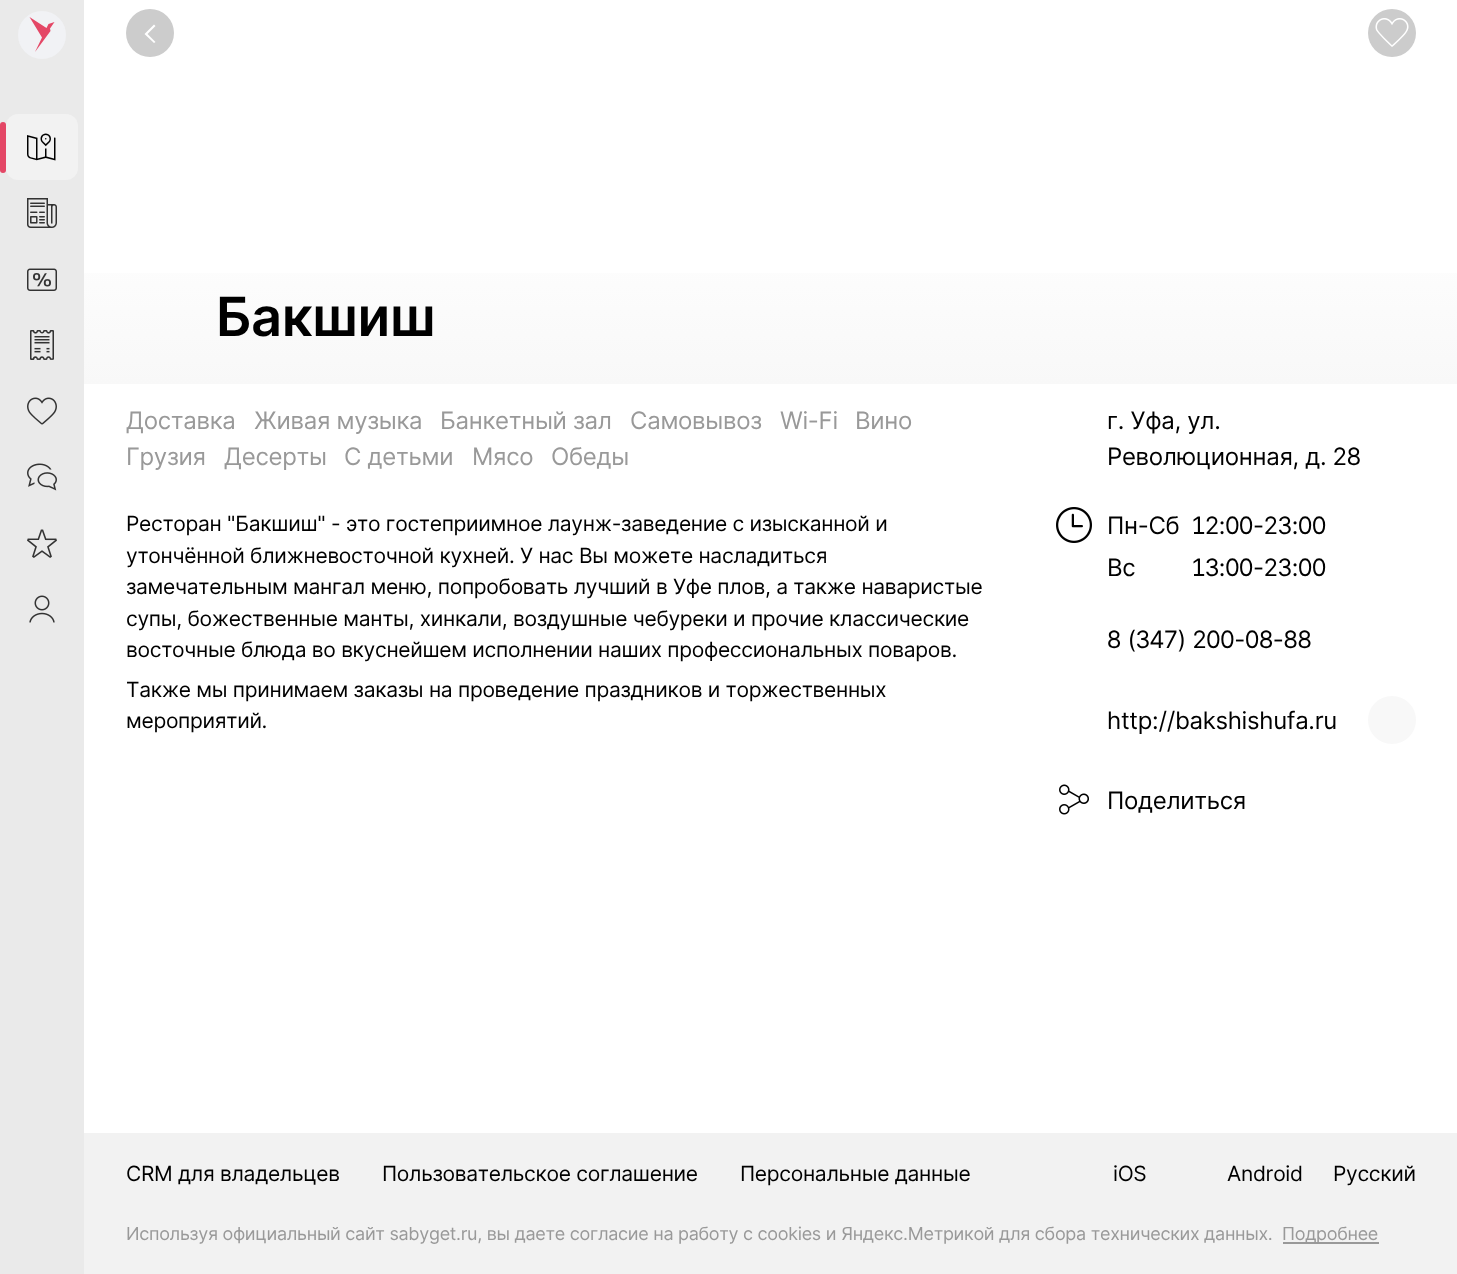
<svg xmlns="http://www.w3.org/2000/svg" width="1457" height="1274">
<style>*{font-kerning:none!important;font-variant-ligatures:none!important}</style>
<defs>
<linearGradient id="g1" gradientUnits="userSpaceOnUse" x1="771" y1="384" x2="771" y2="0"><stop offset="0" stop-color="#f8f8f8"/><stop offset="0.45" stop-color="#fff"/></linearGradient>
</defs>
<rect width="100%" height="100%" fill="#fff"/>
<rect width="84" height="1274" fill="#eaeaea"/>
<circle cx="42" cy="35" r="23" fill="#f1f2f5" stroke="#f1f2f5" stroke-width="2"/>
<path d="M50 28.5l.5 2.5l-15.5 21l7-14.5l-12.5-20.5l17 11l2-4l6-2zm-15 23.5h0z" fill="#e44766"/>
<rect y="122" width="6" height="51" rx="3" fill="#e44766"/>
<rect x="6" y="114" width="72" height="66" rx="12" fill="#f2f2f2"/>
<text x="27" y="162" style="font-family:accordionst;font-size:30px;letter-spacing:-0.3px;fill:#000">Map</text>
<image x="27" y="198" width="30" height="30" href="media/1.png"/>
<image x="27" y="268" width="30" height="23" href="media/2.png"/>
<image x="30" y="330" width="24" height="30" href="media/3.png"/>
<image x="27" y="397" width="30" height="28" href="media/4.png"/>
<image x="27" y="463" width="30" height="28" href="media/5.png"/>
<image x="27" y="529" width="30" height="29" href="media/6.png"/>
<image x="29" y="595" width="26" height="28" href="media/7.png"/>
<circle cx="150" cy="33" r="24" fill="#ccc"/>
<path d="M154 24.5l1.5 1.5l-8 8l8 8l-1.5 1l-9.5-9z" fill="#fff"/>
<circle cx="1392" cy="33" r="24" fill="#ccc"/>
<image x="1375" y="18" width="34" height="29" href="media/8.png"/>
<rect x="84" y="273" width="1373" height="111" fill="url(#g1)"/>
<text x="216" y="336" style="font-family:Inter;font-size:54px;font-weight:600;letter-spacing:-0.3px;fill:#000">Бакшиш</text>
<text x="126" y="429" style="font-family:Inter;font-size:24px;letter-spacing:-0.3px;fill:#999">Доставка</text>
<text x="254" y="429" style="font-family:Inter;font-size:24px;letter-spacing:-0.3px;fill:#999">Живая музыка</text>
<text x="440" y="429" style="font-family:Inter;font-size:24px;letter-spacing:-0.3px;fill:#999">Банкетный зал</text>
<text x="630" y="429" style="font-family:Inter;font-size:24px;letter-spacing:-0.3px;fill:#999">Самовывоз</text>
<text x="780" y="429" style="font-family:Inter;font-size:24px;letter-spacing:-0.3px;fill:#999">Wi-Fi</text>
<text x="855" y="429" style="font-family:Inter;font-size:24px;letter-spacing:-0.3px;fill:#999">Вино</text>
<text x="126" y="465" style="font-family:Inter;font-size:24px;letter-spacing:-0.3px;fill:#999">Грузия</text>
<text x="224" y="465" style="font-family:Inter;font-size:24px;letter-spacing:-0.3px;fill:#999">Десерты</text>
<text x="344" y="465" style="font-family:Inter;font-size:24px;letter-spacing:-0.3px;fill:#999">С детьми</text>
<text x="472" y="465" style="font-family:Inter;font-size:24px;letter-spacing:-0.3px;fill:#999">Мясо</text>
<text x="551" y="465" style="font-family:Inter;font-size:24px;letter-spacing:-0.3px;fill:#999">Обеды</text>
<text x="126" y="531" style="font-family:Inter;font-size:21px;letter-spacing:-0.3px;fill:#000">Ресторан "Бакшиш" - это гостеприимное лаунж-заведение с изысканной и</text>
<text x="126" y="563" style="font-family:Inter;font-size:21px;letter-spacing:-0.3px;fill:#000">утончённой ближневосточной кухней. У нас Вы можете насладиться</text>
<text x="126" y="594" style="font-family:Inter;font-size:21px;letter-spacing:-0.3px;fill:#000">замечательным мангал меню, попробовать лучший в Уфе плов, а также наваристые</text>
<text x="126" y="626" style="font-family:Inter;font-size:21px;letter-spacing:-0.3px;fill:#000">супы, божественные манты, хинкали, воздушные чебуреки и прочие классические</text>
<text x="126" y="657" style="font-family:Inter;font-size:21px;letter-spacing:-0.3px;fill:#000">восточные блюда во вкуснейшем исполнении наших профессиональных поваров.</text>
<text x="126" y="697" style="font-family:Inter;font-size:21px;letter-spacing:-0.3px;fill:#000">Также мы принимаем заказы на проведение праздников и торжественных</text>
<text x="126" y="728" style="font-family:Inter;font-size:21px;letter-spacing:-0.3px;fill:#000">мероприятий.</text>
<text x="1107" y="429" style="font-family:Inter;font-size:24px;letter-spacing:-0.3px;fill:#000">г. Уфа, ул.</text>
<text x="1107" y="465" style="font-family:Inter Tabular;font-size:24px;letter-spacing:-0.3px;fill:#000">Революционная, д. 28</text>
<image x="1056" y="507" width="36" height="36" href="media/9.png"/>
<text x="1107" y="534" style="font-family:Inter;font-size:24px;letter-spacing:-0.3px;fill:#000">Пн-Сб</text>
<text x="1191" y="534" style="font-family:Inter Tabular;font-size:24px;letter-spacing:-0.3px;fill:#000">12:00-23:00</text>
<text x="1107" y="576" style="font-family:Inter;font-size:24px;letter-spacing:-0.3px;fill:#000">Вс</text>
<text x="1191" y="576" style="font-family:Inter Tabular;font-size:24px;letter-spacing:-0.3px;fill:#000">13:00-23:00</text>
<text x="1107" y="648" style="font-family:Inter Tabular;font-size:24px;letter-spacing:-0.3px;fill:#000">8 (347) 200-08-88</text>
<text x="1107" y="729" style="font-family:Inter;font-size:24px;letter-spacing:-0.3px;fill:#000">http://bakshishufa.ru</text>
<circle cx="1392" cy="720" r="24" fill="#f8f8f8"/>
<image x="1059" y="784" width="30" height="31" href="media/10.png"/>
<text x="1107" y="809" style="font-family:Inter;font-size:24px;letter-spacing:-0.3px;fill:#000">Поделиться</text>
<rect x="84" y="1133" width="1373" height="141" fill="#f2f2f2"/>
<text x="126" y="1181" style="font-family:Inter;font-size:21px;letter-spacing:-0.3px;fill:#000">CRM для владельцев</text>
<text x="382" y="1181" style="font-family:Inter;font-size:21px;letter-spacing:-0.3px;fill:#000">Пользовательское соглашение</text>
<text x="740" y="1181" style="font-family:Inter;font-size:21px;letter-spacing:-0.3px;fill:#000">Персональные данные</text>
<text x="1113" y="1181" style="font-family:Inter;font-size:21px;letter-spacing:-0.3px;fill:#000">iOS</text>
<text x="1227" y="1181" style="font-family:Inter;font-size:21px;letter-spacing:-0.3px;fill:#000">Android</text>
<text x="1333" y="1181" style="font-family:Inter;font-size:21px;letter-spacing:-0.3px;fill:#000">Русский</text>
<text x="126" y="1240" style="font-family:Inter;font-size:18px;letter-spacing:-0.3px;fill:#999">Используя официальный сайт sabyget.ru, вы даете согласие на работу с cookies и Яндекс.Метрикой для сбора технических данных.</text>
<rect x="1283" y="1242" width="96" height="2" fill="#999"/>
<text x="1282" y="1240" style="font-family:Inter;font-size:18px;letter-spacing:-0.3px;fill:#999">Подробнее</text>
</svg>
